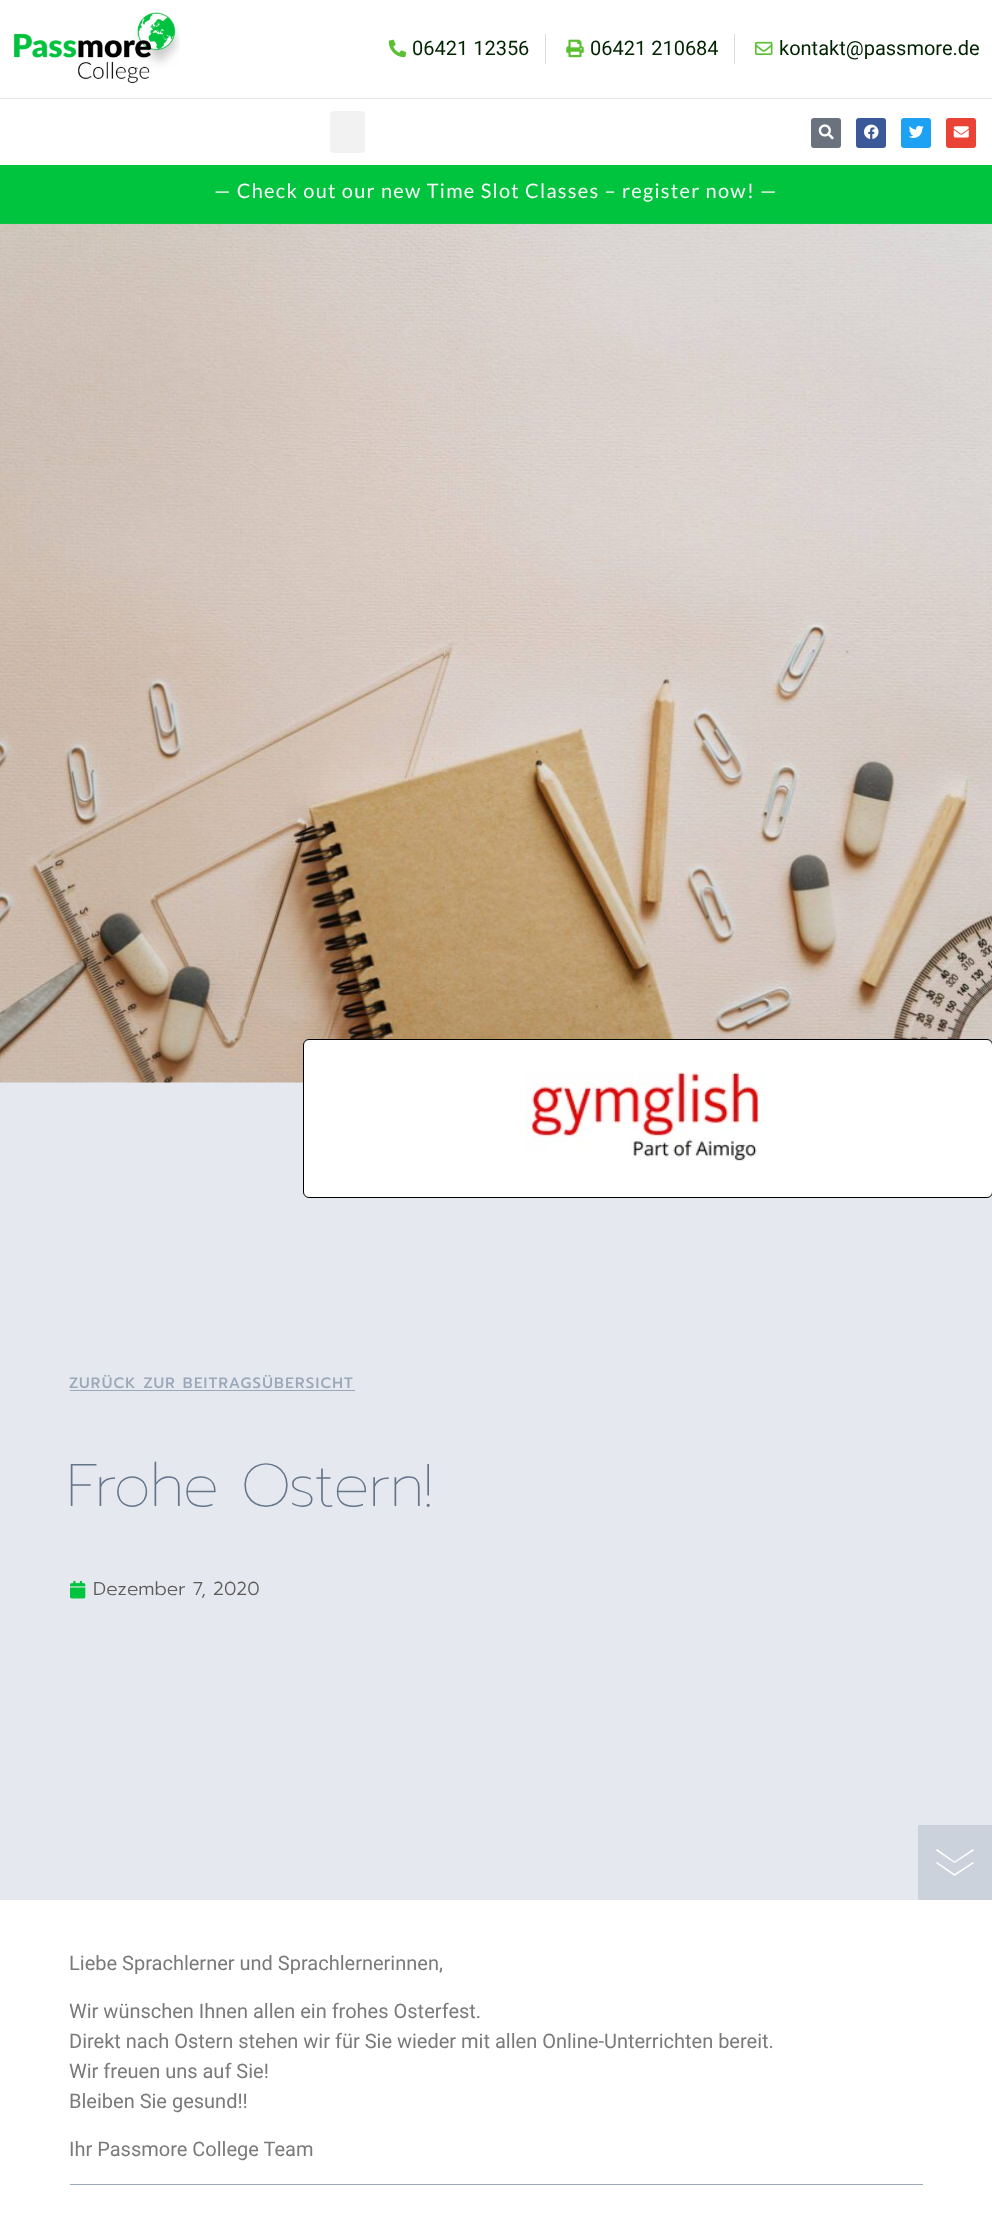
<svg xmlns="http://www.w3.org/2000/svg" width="992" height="2235">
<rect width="100%" height="100%" fill="#e5e9ef"/>
<rect width="992" height="98" fill="#fff"/>
<rect y="98" width="992" height="1" fill="#e5e5e5"/>
<image x="13" y="12" width="167" height="72" href="media/1.png"/>
<image x="388" y="39" width="19" height="19" href="media/2.png"/>
<text x="412" y="55" style="font-family:Roboto;font-size:20px;fill:#002400">06421 12356</text>
<rect x="545" y="34" width="1" height="30" fill="#ddd"/>
<image x="566" y="39" width="18" height="19" href="media/3.png"/>
<text x="590" y="55" style="font-family:Roboto;font-size:20px;fill:#002400">06421 210684</text>
<rect x="734" y="34" width="1" height="30" fill="#ddd"/>
<image x="755" y="41" width="18" height="14" href="media/4.png"/>
<text x="779" y="55" style="font-family:Roboto;font-size:20px;fill:#002400">kontakt@passmore.de</text>
<rect y="99" width="992" height="66" fill="#fff"/>
<rect x="330" y="111" width="35" height="42" rx="4" fill="#f2f2f2"/>
<rect x="811" y="118" width="30" height="30" rx="3" fill="#69727d"/>
<image x="818" y="124" width="16" height="16" href="media/5.png"/>
<rect x="856" y="118" width="30" height="30" rx="3" fill="#3b5998"/>
<image x="864" y="124" width="15" height="15" href="media/6.png"/>
<rect x="901" y="118" width="30" height="30" rx="3" fill="#1da1f2"/>
<image x="909" y="125" width="15" height="13" href="media/7.png"/>
<rect x="946" y="118" width="30" height="30" rx="3" fill="#ea4335"/>
<image x="953" y="126" width="16" height="12" href="media/8.png"/>
<rect y="165" width="992" height="59" fill="#00c33e"/>
<text x="214" y="198" style="font-family:Lato;font-size:20px;letter-spacing:1.25px;fill:#f7f7f7">— Check out our new Time Slot Classes – register now! —</text>
<image x="0" y="223" width="992" height="860" href="media/10.png"/>
<rect x="303.5" y="1039.5" width="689" height="158" rx="5.5" fill="#fff" stroke="#000"/>
<image x="525" y="1072" width="240" height="89" href="media/9.png"/>
<text x="69" y="1388" style="font-family:Prompt;font-size:15px;font-weight:500;letter-spacing:1.25px;fill:#9aa8ba">ZURÜCK ZUR BEITRAGSÜBERSICHT</text>
<rect x="70" y="1390" width="285" height="1" fill="#9aa8ba"/>
<text x="66" y="1506" style="font-family:Prompt;font-size:60px;font-weight:100;letter-spacing:-1.25px;fill:#65768b">Frohe Ostern!</text>
<image x="70" y="1580" width="16" height="19" href="media/11.png"/>
<text x="93" y="1595" style="font-family:Prompt;font-size:18.75px;font-weight:300;fill:#5f5b5b">Dezember 7, 2020</text>
<rect x="918" y="1825" width="74" height="75" fill="#cbd2db"/>
<path d="M954.5 1876l-18.5-13l1-1l17.5 12l18.5-12l1 1z" fill="#fff"/>
<path d="M954.5 1863l-18.5-12.5l1-1.5l17.5 12.5l18.5-12.5l1 1.5z" fill="#fff"/>
<rect y="1900" width="992" height="335" fill="#fff"/>
<text x="69" y="1970" style="font-family:Roboto;font-size:20px;fill:#7a7a7a">Liebe Sprachlerner und Sprachlernerinnen,</text>
<text x="69" y="2018" style="font-family:Roboto;font-size:20px;fill:#7a7a7a">Wir wünschen Ihnen allen ein frohes Osterfest.</text>
<text x="69" y="2048" style="font-family:Roboto;font-size:20px;fill:#7a7a7a">Direkt nach Ostern stehen wir für Sie wieder mit allen Online-Unterrichten bereit.</text>
<text x="69" y="2078" style="font-family:Roboto;font-size:20px;fill:#7a7a7a">Wir freuen uns auf Sie!</text>
<text x="69" y="2108" style="font-family:Roboto;font-size:20px;fill:#7a7a7a">Bleiben Sie gesund!!</text>
<text x="69" y="2156" style="font-family:Roboto;font-size:20px;fill:#7a7a7a">Ihr Passmore College Team</text>
<rect x="70" y="2184" width="853" height="1" fill="#9aa8ba"/>
</svg>
